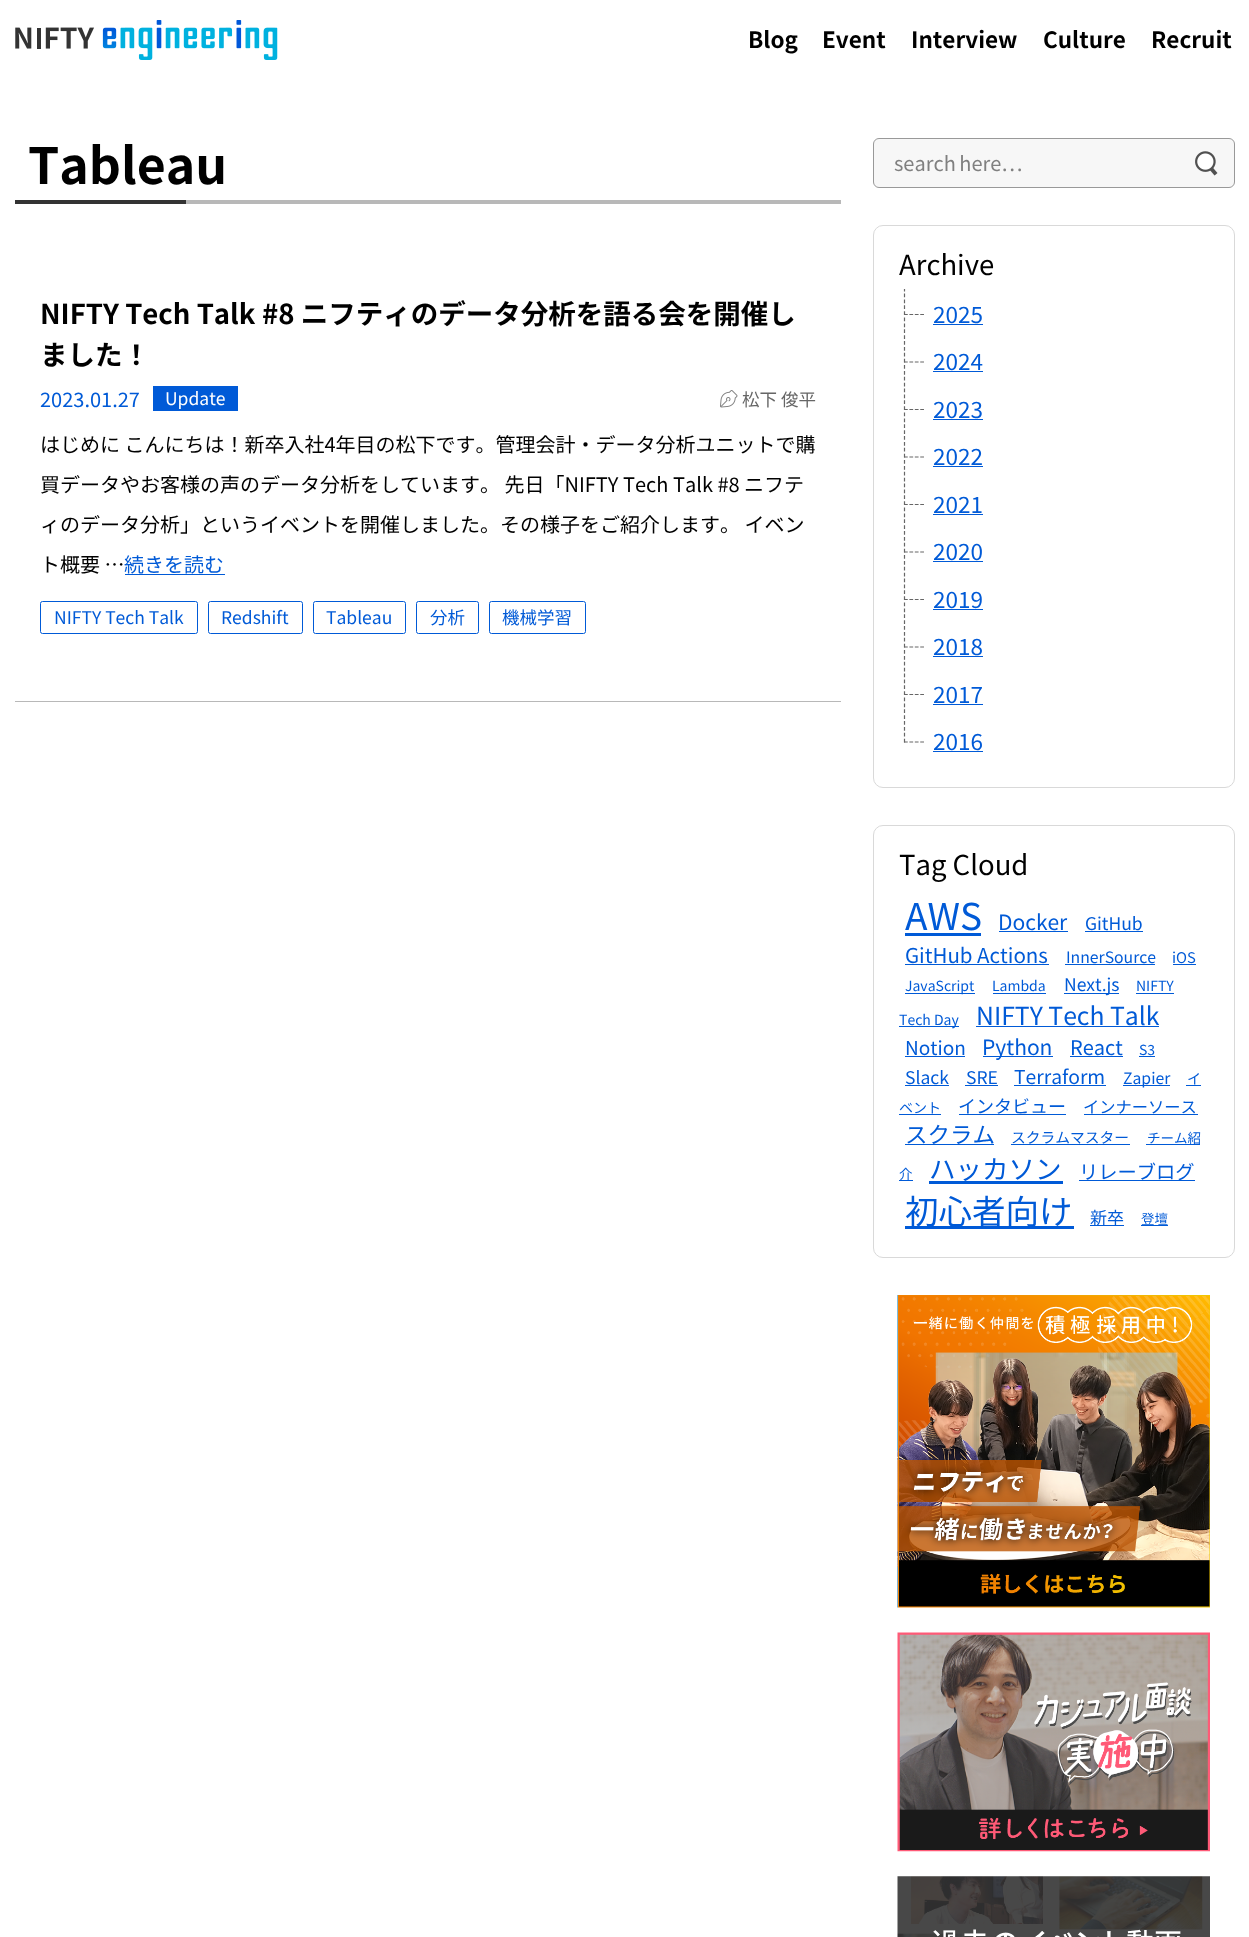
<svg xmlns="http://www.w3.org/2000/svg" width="1249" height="1937">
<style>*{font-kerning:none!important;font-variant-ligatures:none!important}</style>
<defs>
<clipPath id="clip1"><rect x="899" y="289" width="310" height="475"/></clipPath>
</defs>
<rect width="100%" height="100%" fill="#fff"/>
<image x="15" y="20" width="263" height="40" href="media/1.png"/>
<text x="748" y="48" style="font-family:Noto Sans JP;font-size:22.5px;font-weight:bold;fill:#000">Blog</text>
<text x="822" y="48" style="font-family:Noto Sans JP;font-size:22.5px;font-weight:bold;fill:#000">Event</text>
<text x="911" y="48" style="font-family:Noto Sans JP;font-size:22.5px;font-weight:bold;fill:#000">Interview</text>
<text x="1043" y="48" style="font-family:Noto Sans JP;font-size:22.5px;font-weight:bold;fill:#000">Culture</text>
<text x="1151" y="48" style="font-family:Noto Sans JP;font-size:22.5px;font-weight:bold;fill:#000">Recruit</text>
<rect x="186" y="200" width="655" height="4" fill="#b8b8b8"/>
<text x="28" y="184" style="font-family:Noto Sans JP;font-size:50px;font-weight:bold;fill:#000">Tableau</text>
<rect x="15" y="200" width="171" height="4" fill="#333"/>
<rect x="15" y="701" width="826" height="1" fill="#b8b8b8"/>
<text x="40" y="324" style="font-family:Noto Sans JP;font-size:27.5px;font-weight:bold;fill:#000">NIFTY Tech Talk</text>
<text x="262" y="324" style="font-family:Noto Sans JP;font-size:27.5px;font-weight:bold;fill:#000">#8 ニフティのデータ分析を語る会を開催し</text>
<text x="40" y="365" style="font-family:Noto Sans JP;font-size:27.5px;font-weight:bold;fill:#000">ました！</text>
<text x="40" y="407" style="font-family:Noto Sans JP;font-size:20px;fill:#005ad7">2023.01.27</text>
<rect x="153" y="386" width="85" height="25" fill="#005ad7"/>
<text x="165" y="405" style="font-family:Noto Sans JP;font-size:17.5px;fill:#fff">Update</text>
<image x="720" y="390" width="18" height="18" href="media/2.png"/>
<text x="742" y="406" style="font-family:Noto Sans JP;font-size:17.5px;fill:#666">松下 俊平</text>
<text x="40" y="452" style="font-family:Noto Sans JP;font-size:20px;fill:#000">はじめに こんにちは！新卒入社4年目の松下です。管理会計・データ分析ユニットで購</text>
<text x="40" y="492" style="font-family:Noto Sans JP;font-size:20px;fill:#000">買データやお客様の声のデータ分析をしています。 先日「NIFTY Tech</text>
<text x="673" y="492" style="font-family:Noto Sans JP;font-size:20px;fill:#000">Talk #8 ニフテ</text>
<text x="40" y="532" style="font-family:Noto Sans JP;font-size:20px;fill:#000">ィのデータ分析」というイベントを開催しました。その様子をご紹介します。 イベン</text>
<text x="40" y="572" style="font-family:Noto Sans JP;font-size:20px;fill:#000">ト概要 …</text>
<text x="124" y="572" style="font-family:Noto Sans JP;font-size:20px;fill:#005ad7">続きを読む</text>
<rect x="125" y="574" width="100" height="1" fill="#005ad7"/>
<rect x="40.5" y="601.5" width="157" height="32" rx="2" fill="none" stroke="#005ad7"/>
<text x="54" y="624" style="font-family:Noto Sans JP;font-size:17.5px;fill:#005ad7">NIFTY Tech Talk</text>
<rect x="208.5" y="601.5" width="94" height="32" rx="2" fill="none" stroke="#005ad7"/>
<text x="221" y="624" style="font-family:Noto Sans JP;font-size:17.5px;fill:#005ad7">Redshift</text>
<rect x="313.5" y="601.5" width="92" height="32" rx="2" fill="none" stroke="#005ad7"/>
<text x="326" y="624" style="font-family:Noto Sans JP;font-size:17.5px;fill:#005ad7">Tableau</text>
<rect x="416.5" y="601.5" width="62" height="32" rx="2" fill="none" stroke="#005ad7"/>
<text x="430" y="624" style="font-family:Noto Sans JP;font-size:17.5px;fill:#005ad7">分析</text>
<rect x="489.5" y="601.5" width="96" height="32" rx="2" fill="none" stroke="#005ad7"/>
<text x="502" y="624" style="font-family:Noto Sans JP;font-size:17.5px;fill:#005ad7">機械学習</text>
<rect x="873.5" y="138.5" width="361" height="49" rx="5.5" fill="#f7f7f7" stroke="#999"/>
<text x="894" y="171" word-spacing="-1" style="font-family:Noto Sans JP;font-size:20px;fill:#808080">search here…</text>
<image x="1195" y="151" width="23" height="25" href="media/3.png"/>
<rect x="873.5" y="225.5" width="361" height="562" rx="9.5" fill="none" stroke="#d9d9d9"/>
<text x="899" y="275" style="font-family:Noto Sans JP;font-size:27.5px;fill:#000">Archive</text>
<path d="M904 314.5h20" fill="none" stroke="#666" stroke-width="1.2" stroke-dasharray="3.75 1.66"/>
<g clip-path="url(#clip1)">
<path d="M904.5 270v45" fill="none" stroke="#666" stroke-width="1.2" stroke-dasharray="3.75 2.14"/>
</g>
<text x="933" y="323" style="font-family:Noto Sans JP;font-size:22.5px;fill:#005ad7">2025</text>
<rect x="933" y="324" width="50" height="1" fill="#005ad7"/>
<path d="M904 362h20" fill="none" stroke="#666" stroke-width="1.2" stroke-dasharray="3.75 1.66"/>
<path d="M904.5 317.5v45" fill="none" stroke="#666" stroke-width="1.2" stroke-dasharray="3.75 2.14"/>
<text x="933" y="370" style="font-family:Noto Sans JP;font-size:22.5px;fill:#005ad7">2024</text>
<rect x="933" y="371" width="50" height="1" fill="#005ad7"/>
<path d="M904 409.5h20" fill="none" stroke="#666" stroke-width="1.2" stroke-dasharray="3.75 1.66"/>
<path d="M904.5 365v45" fill="none" stroke="#666" stroke-width="1.2" stroke-dasharray="3.75 2.14"/>
<text x="933" y="418" style="font-family:Noto Sans JP;font-size:22.5px;fill:#005ad7">2023</text>
<rect x="933" y="419" width="50" height="1" fill="#005ad7"/>
<path d="M904 457h20" fill="none" stroke="#666" stroke-width="1.2" stroke-dasharray="3.75 1.66"/>
<path d="M904.5 412.5v45" fill="none" stroke="#666" stroke-width="1.2" stroke-dasharray="3.75 2.14"/>
<text x="933" y="465" style="font-family:Noto Sans JP;font-size:22.5px;fill:#005ad7">2022</text>
<rect x="933" y="466" width="50" height="1" fill="#005ad7"/>
<path d="M904 504.5h20" fill="none" stroke="#666" stroke-width="1.2" stroke-dasharray="3.75 1.66"/>
<path d="M904.5 460v45" fill="none" stroke="#666" stroke-width="1.2" stroke-dasharray="3.75 2.14"/>
<text x="933" y="513" style="font-family:Noto Sans JP;font-size:22.5px;fill:#005ad7">2021</text>
<rect x="933" y="514" width="50" height="1" fill="#005ad7"/>
<path d="M904 552h20" fill="none" stroke="#666" stroke-width="1.2" stroke-dasharray="3.75 1.66"/>
<path d="M904.5 507.5v45" fill="none" stroke="#666" stroke-width="1.2" stroke-dasharray="3.75 2.14"/>
<text x="933" y="560" style="font-family:Noto Sans JP;font-size:22.5px;fill:#005ad7">2020</text>
<rect x="933" y="561" width="50" height="1" fill="#005ad7"/>
<path d="M904 599.5h20" fill="none" stroke="#666" stroke-width="1.2" stroke-dasharray="3.75 1.66"/>
<path d="M904.5 555v45" fill="none" stroke="#666" stroke-width="1.2" stroke-dasharray="3.75 2.14"/>
<text x="933" y="608" style="font-family:Noto Sans JP;font-size:22.5px;fill:#005ad7">2019</text>
<rect x="933" y="609" width="50" height="1" fill="#005ad7"/>
<path d="M904 647h20" fill="none" stroke="#666" stroke-width="1.2" stroke-dasharray="3.75 1.66"/>
<path d="M904.5 602.5v45" fill="none" stroke="#666" stroke-width="1.2" stroke-dasharray="3.75 2.14"/>
<text x="933" y="655" style="font-family:Noto Sans JP;font-size:22.5px;fill:#005ad7">2018</text>
<rect x="933" y="656" width="50" height="1" fill="#005ad7"/>
<path d="M904 694.5h20" fill="none" stroke="#666" stroke-width="1.2" stroke-dasharray="3.75 1.66"/>
<path d="M904.5 650v45" fill="none" stroke="#666" stroke-width="1.2" stroke-dasharray="3.75 2.14"/>
<text x="933" y="703" style="font-family:Noto Sans JP;font-size:22.5px;fill:#005ad7">2017</text>
<rect x="933" y="704" width="50" height="1" fill="#005ad7"/>
<path d="M904 742h20" fill="none" stroke="#666" stroke-width="1.2" stroke-dasharray="3.75 1.66"/>
<path d="M904.5 697.5v45" fill="none" stroke="#666" stroke-width="1.2" stroke-dasharray="3.75 2.14"/>
<text x="933" y="750" style="font-family:Noto Sans JP;font-size:22.5px;fill:#005ad7">2016</text>
<rect x="933" y="751" width="50" height="1" fill="#005ad7"/>
<rect x="873.5" y="825.5" width="361" height="432" rx="9.5" fill="none" stroke="#d9d9d9"/>
<text x="899" y="875" style="font-family:Noto Sans JP;font-size:27.5px;fill:#000">Tag Cloud</text>
<text x="905" y="930" style="font-family:Noto Sans JP;font-size:37px;fill:#005ad7">AWS</text>
<rect x="905" y="933" width="76" height="3" fill="#005ad7"/>
<text x="998" y="930" style="font-family:Noto Sans JP;font-size:21px;fill:#005ad7">Docker</text>
<rect x="999" y="931" width="69" height="1" fill="#005ad7"/>
<text x="1085" y="930" style="font-family:Noto Sans JP;font-size:17.5px;fill:#005ad7">GitHub</text>
<rect x="1085" y="931" width="58" height="1" fill="#005ad7"/>
<text x="905" y="963" style="font-family:Noto Sans JP;font-size:20.5px;fill:#005ad7">GitHub Actions</text>
<rect x="905" y="964" width="144" height="1" fill="#005ad7"/>
<text x="1066" y="963" style="font-family:Noto Sans JP;font-size:15.75px;fill:#005ad7">InnerSource</text>
<rect x="1065" y="964" width="90" height="1" fill="#005ad7"/>
<text x="1172" y="963" style="font-family:Noto Sans JP;font-size:14.75px;fill:#005ad7">iOS</text>
<rect x="1173" y="964" width="23" height="1" fill="#005ad7"/>
<rect x="905" y="993" width="70" height="1" fill="#005ad7"/>
<text x="905" y="991" style="font-family:Noto Sans JP;font-size:14px;fill:#005ad7">JavaScript</text>
<text x="992" y="991" style="font-family:Noto Sans JP;font-size:14px;fill:#005ad7">Lambda</text>
<rect x="993" y="993" width="53" height="1" fill="#005ad7"/>
<rect x="1064" y="993" width="55" height="1" fill="#005ad7"/>
<text x="1064" y="991" style="font-family:Noto Sans JP;font-size:17.5px;fill:#005ad7">Next.js</text>
<text x="1136" y="991" style="font-family:Noto Sans JP;font-size:14px;fill:#005ad7">NIFTY</text>
<rect x="1136" y="993" width="38" height="1" fill="#005ad7"/>
<rect x="899" y="1026" width="60" height="1" fill="#005ad7"/>
<text x="899" y="1025" style="font-family:Noto Sans JP;font-size:14px;fill:#005ad7">Tech Day</text>
<text x="976" y="1025" style="font-family:Noto Sans JP;font-size:24.75px;fill:#005ad7">NIFTY Tech Talk</text>
<rect x="976" y="1026" width="183" height="1" fill="#005ad7"/>
<text x="905" y="1055" style="font-family:Noto Sans JP;font-size:19px;fill:#005ad7">Notion</text>
<rect x="905" y="1056" width="60" height="1" fill="#005ad7"/>
<rect x="983" y="1056" width="70" height="1" fill="#005ad7"/>
<text x="982" y="1055" style="font-family:Noto Sans JP;font-size:21px;fill:#005ad7">Python</text>
<text x="1070" y="1055" style="font-family:Noto Sans JP;font-size:20px;fill:#005ad7">React</text>
<rect x="1070" y="1056" width="53" height="1" fill="#005ad7"/>
<text x="1139" y="1055" style="font-family:Noto Sans JP;font-size:14px;fill:#005ad7">S3</text>
<rect x="1139" y="1056" width="16" height="1" fill="#005ad7"/>
<text x="905" y="1084" style="font-family:Noto Sans JP;font-size:17.5px;fill:#005ad7">Slack</text>
<rect x="905" y="1085" width="44" height="1" fill="#005ad7"/>
<text x="966" y="1084" style="font-family:Noto Sans JP;font-size:17.5px;fill:#005ad7">SRE</text>
<rect x="965" y="1085" width="33" height="1" fill="#005ad7"/>
<text x="1014" y="1084" style="font-family:Noto Sans JP;font-size:19.25px;fill:#005ad7">Terraform</text>
<rect x="1014" y="1085" width="92" height="1" fill="#005ad7"/>
<rect x="1123" y="1085" width="47" height="1" fill="#005ad7"/>
<text x="1123" y="1084" style="font-family:Noto Sans JP;font-size:15.75px;fill:#005ad7">Zapier</text>
<text x="1187" y="1084" style="font-family:Noto Sans JP;font-size:14px;fill:#005ad7">イ</text>
<rect x="1186" y="1085" width="15" height="1" fill="#005ad7"/>
<text x="899" y="1113" style="font-family:Noto Sans JP;font-size:14px;fill:#005ad7">ベント</text>
<rect x="899" y="1114" width="42" height="1" fill="#005ad7"/>
<text x="958" y="1113" style="font-family:Noto Sans JP;font-size:18px;fill:#005ad7">インタビュー</text>
<rect x="959" y="1114" width="107" height="1" fill="#005ad7"/>
<text x="1083" y="1113" style="font-family:Noto Sans JP;font-size:16.25px;fill:#005ad7">インナーソース</text>
<rect x="1084" y="1114" width="114" height="1" fill="#005ad7"/>
<text x="905" y="1143" style="font-family:Noto Sans JP;font-size:22.5px;fill:#005ad7">スクラム</text>
<rect x="905" y="1144" width="89" height="1" fill="#005ad7"/>
<text x="1011" y="1143" style="font-family:Noto Sans JP;font-size:14.75px;fill:#005ad7">スクラムマスター</text>
<rect x="1011" y="1144" width="119" height="1" fill="#005ad7"/>
<rect x="1146" y="1144" width="54" height="1" fill="#005ad7"/>
<text x="1147" y="1143" style="font-family:Noto Sans JP;font-size:13.5px;fill:#005ad7">チーム紹</text>
<rect x="899" y="1180" width="14" height="1" fill="#005ad7"/>
<text x="899" y="1179" style="font-family:Noto Sans JP;font-size:13.5px;fill:#005ad7">介</text>
<text x="929" y="1179" style="font-family:Noto Sans JP;font-size:26.5px;fill:#005ad7">ハッカソン</text>
<rect x="929" y="1181" width="134" height="3" fill="#005ad7"/>
<rect x="1079" y="1180" width="116" height="1" fill="#005ad7"/>
<text x="1079" y="1179" style="font-family:Noto Sans JP;font-size:19.25px;fill:#005ad7">リレーブログ</text>
<rect x="905" y="1226" width="169" height="3" fill="#005ad7"/>
<text x="905" y="1224" style="font-family:Noto Sans JP;font-size:33.5px;fill:#005ad7">初心者向け</text>
<rect x="1090" y="1225" width="34" height="1" fill="#005ad7"/>
<text x="1090" y="1224" style="font-family:Noto Sans JP;font-size:17px;fill:#005ad7">新卒</text>
<text x="1141" y="1224" style="font-family:Noto Sans JP;font-size:13.5px;fill:#005ad7">登壇</text>
<rect x="1141" y="1225" width="27" height="1" fill="#005ad7"/>
<image x="897" y="1295" width="313" height="313" href="media/4.png"/>
<image x="897" y="1632" width="313" height="220" href="media/5.png"/>
<image x="897" y="1876" width="313" height="61" href="media/6.png"/>
</svg>
